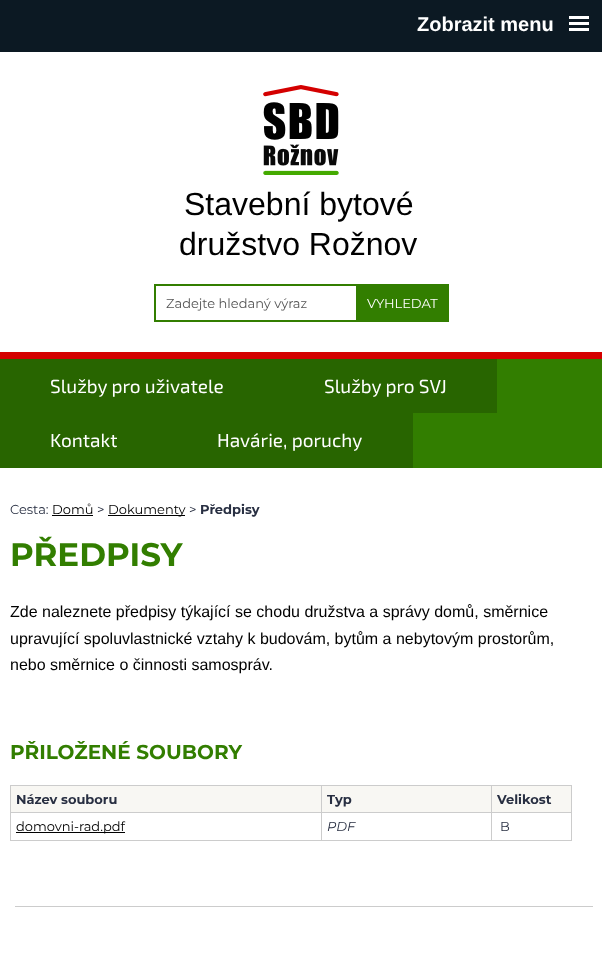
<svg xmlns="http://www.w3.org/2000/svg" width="602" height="954">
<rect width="100%" height="100%" fill="#fff"/>
<rect width="602" height="52" fill="#0c1923"/>
<text x="417" y="31" style="font-family:Liberation Sans;font-size:20px;font-weight:bold;fill:#fff">Zobrazit menu</text>
<rect x="569" y="16" width="20" height="3" fill="#fff"/>
<rect x="569" y="22" width="20" height="3" fill="#fff"/>
<rect x="569" y="28" width="20" height="3" fill="#fff"/>
<image x="263" y="85" width="76" height="90" href="media/1.png"/>
<text x="184" y="215" style="font-family:Liberation Sans;font-size:32px;fill:#000">Stavební bytové</text>
<text x="179" y="255" style="font-family:Liberation Sans;font-size:32px;fill:#000">družstvo Rožnov</text>
<rect x="154" y="284" width="207" height="2" fill="#327e00"/>
<rect x="154" y="320" width="207" height="2" fill="#327e00"/>
<rect x="154" y="284" width="2" height="38" fill="#327e00"/>
<text x="166" y="308" style="font-family:Montserrat;font-size:13px;fill:#555">Zadejte hledaný výraz</text>
<rect x="356" y="284" width="93" height="38" fill="#327e00"/>
<text x="367" y="308" style="font-family:Montserrat;font-size:13px;fill:#fff">VYHLEDAT</text>
<rect x="413" y="359" width="189" height="109" fill="#327e00"/>
<rect y="352" width="602" height="7" fill="#d40000"/>
<rect y="359" width="497" height="54" fill="#286500"/>
<text x="50" y="393" style="font-family:'Exo 2';font-size:19px;fill:#fff">Služby pro uživatele</text>
<text x="324" y="393" style="font-family:'Exo 2';font-size:19px;fill:#fff">Služby pro SVJ</text>
<rect y="413" width="413" height="55" fill="#286500"/>
<text x="50" y="447" style="font-family:'Exo 2';font-size:19px;fill:#fff">Kontakt</text>
<text x="217" y="447" style="font-family:'Exo 2';font-size:19px;fill:#fff">Havárie, poruchy</text>
<text x="10" y="514" style="font-family:Montserrat;font-size:13px;fill:#282f42">Cesta:</text>
<text x="52" y="514" style="font-family:Montserrat;font-size:13px;fill:#000">Domů</text>
<rect x="52" y="515" width="41" height="1" fill="#000"/>
<text x="97" y="514" style="font-family:Montserrat;font-size:13px;fill:#282f42">&gt;</text>
<rect x="108" y="515" width="77" height="1" fill="#000"/>
<text x="108" y="514" style="font-family:Montserrat;font-size:13px;fill:#000">Dokumenty</text>
<text x="189" y="514" style="font-family:Montserrat;font-size:13px;fill:#282f42">&gt;</text>
<text x="200" y="514" style="font-family:Montserrat;font-size:13px;font-weight:bold;fill:#282f42">Předpisy</text>
<text x="10" y="566" style="font-family:Montserrat;font-size:32.5px;font-weight:bold;fill:#327e00">PŘEDPISY</text>
<text x="10" y="617" style="font-family:Liberation Sans;font-size:16px;fill:#000">Zde naleznete předpisy týkající se chodu družstva a správy domů, směrnice</text>
<text x="10" y="644" style="font-family:Liberation Sans;font-size:16px;fill:#000">upravující spoluvlastnické vztahy k budovám, bytům a nebytovým prostorům,</text>
<text x="10" y="670" style="font-family:Liberation Sans;font-size:16px;fill:#000">nebo směrnice o činnosti samospráv.</text>
<text x="10" y="759" style="font-family:Montserrat;font-size:20px;font-weight:bold;fill:#327e00">PŘILOŽENÉ SOUBORY</text>
<rect x="11" y="786" width="310" height="26" fill="#f8f7f3"/>
<rect x="491" y="785" width="81" height="1" fill="#ccc"/>
<rect x="491" y="812" width="81" height="1" fill="#ccc"/>
<rect x="571" y="812" width="1" height="29" fill="#ccc"/>
<rect x="491" y="840" width="81" height="1" fill="#ccc"/>
<rect x="491" y="812" width="1" height="29" fill="#ccc"/>
<rect x="321" y="812" width="171" height="1" fill="#ccc"/>
<rect x="491" y="785" width="1" height="28" fill="#ccc"/>
<rect x="321" y="785" width="171" height="1" fill="#ccc"/>
<rect x="321" y="840" width="171" height="1" fill="#ccc"/>
<rect x="321" y="812" width="1" height="29" fill="#ccc"/>
<rect x="10" y="812" width="312" height="1" fill="#ccc"/>
<rect x="321" y="785" width="1" height="28" fill="#ccc"/>
<rect x="10" y="785" width="312" height="1" fill="#ccc"/>
<rect x="10" y="840" width="312" height="1" fill="#ccc"/>
<rect x="10" y="812" width="1" height="29" fill="#ccc"/>
<rect x="10" y="785" width="1" height="28" fill="#ccc"/>
<text x="16" y="804" style="font-family:Montserrat;font-size:13px;font-weight:bold;fill:#282f42">Název souboru</text>
<rect x="322" y="786" width="169" height="26" fill="#f8f7f3"/>
<text x="327" y="804" style="font-family:Montserrat;font-size:13px;font-weight:bold;fill:#282f42">Typ</text>
<rect x="492" y="786" width="79" height="26" fill="#f8f7f3"/>
<rect x="571" y="785" width="1" height="28" fill="#ccc"/>
<text x="497" y="804" style="font-family:Montserrat;font-size:13px;font-weight:bold;fill:#282f42">Velikost</text>
<rect x="16" y="832" width="109" height="1" fill="#000"/>
<text x="16" y="831" style="font-family:Montserrat;font-size:13px;fill:#000">domovni-rad.pdf</text>
<text x="327" y="831" style="font-family:Montserrat;font-size:13px;font-style:italic;fill:#282f42">PDF</text>
<text x="500" y="831" style="font-family:Montserrat;font-size:13px;fill:#282f42">B</text>
<rect x="15" y="906" width="578" height="1" fill="#ccc"/>
</svg>
